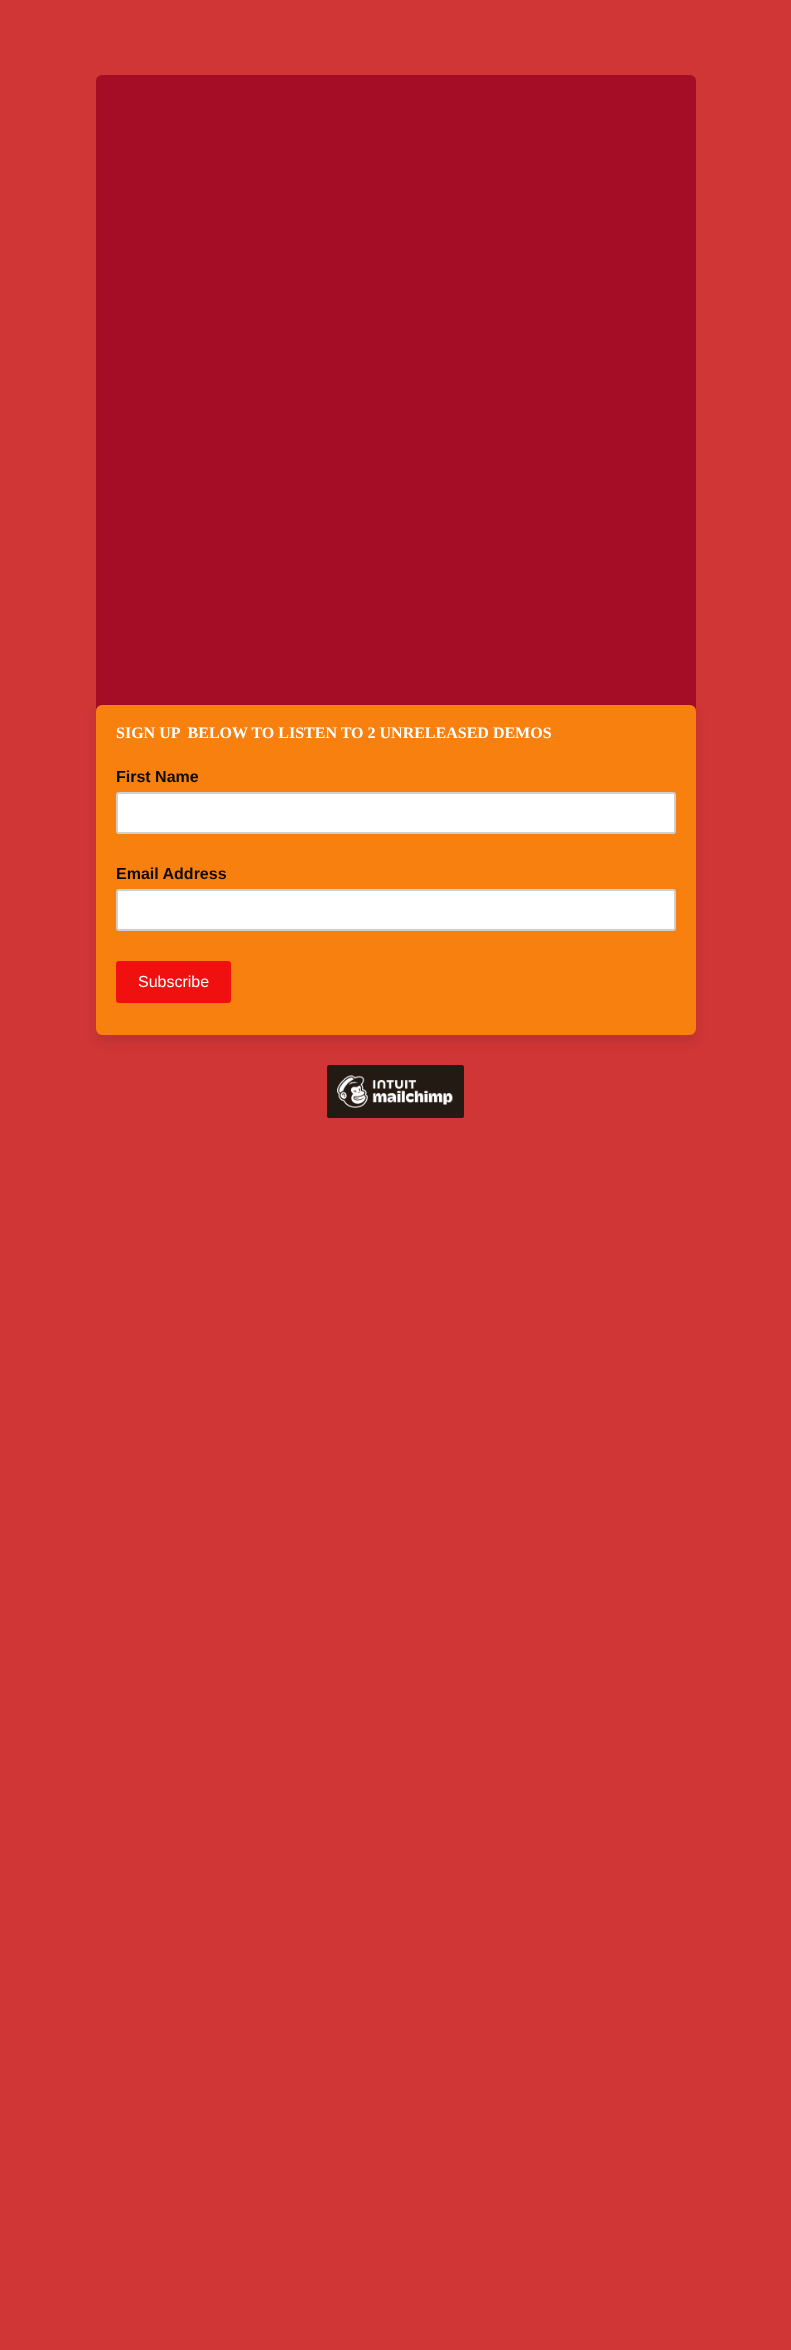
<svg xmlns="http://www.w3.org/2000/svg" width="791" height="2350">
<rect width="100%" height="100%" fill="#d13636"/>
<rect x="96" y="75" width="600" height="960" rx="6" fill="#a50c26"/>
<rect x="96" y="711" width="600" height="330" rx="6" fill="#0d12161f" filter="blur(6px)"/>
<rect x="96" y="705" width="600" height="330" rx="6" fill="#f8800f"/>
<text x="116" y="738" style="font-family:Liberation Serif;font-size:16px;font-weight:bold;fill:#fff" xml:space="preserve">SIGN UP  BELOW TO LISTEN TO 2 UNRELEASED DEMOS</text>
<text x="116" y="782" style="font-family:Liberation Sans;font-size:16px;font-weight:bold;fill:#0c0b0b">First Name</text>
<rect x="117" y="793" width="558" height="40" rx="2" fill="#fff" stroke="#d0d0d0" stroke-width="2"/>
<text x="116" y="879" style="font-family:Liberation Sans;font-size:16px;font-weight:bold;fill:#0c0b0b">Email Address</text>
<rect x="117" y="890" width="558" height="40" rx="2" fill="#fff" stroke="#d0d0d0" stroke-width="2"/>
<rect x="116" y="961" width="115" height="42" rx="3" fill="#f01010"/>
<text x="138" y="987" style="font-family:Liberation Sans;font-size:16px;fill:#fff">Subscribe</text>
<image x="327" y="1065" width="137" height="53" href="media/1.png"/>
</svg>
